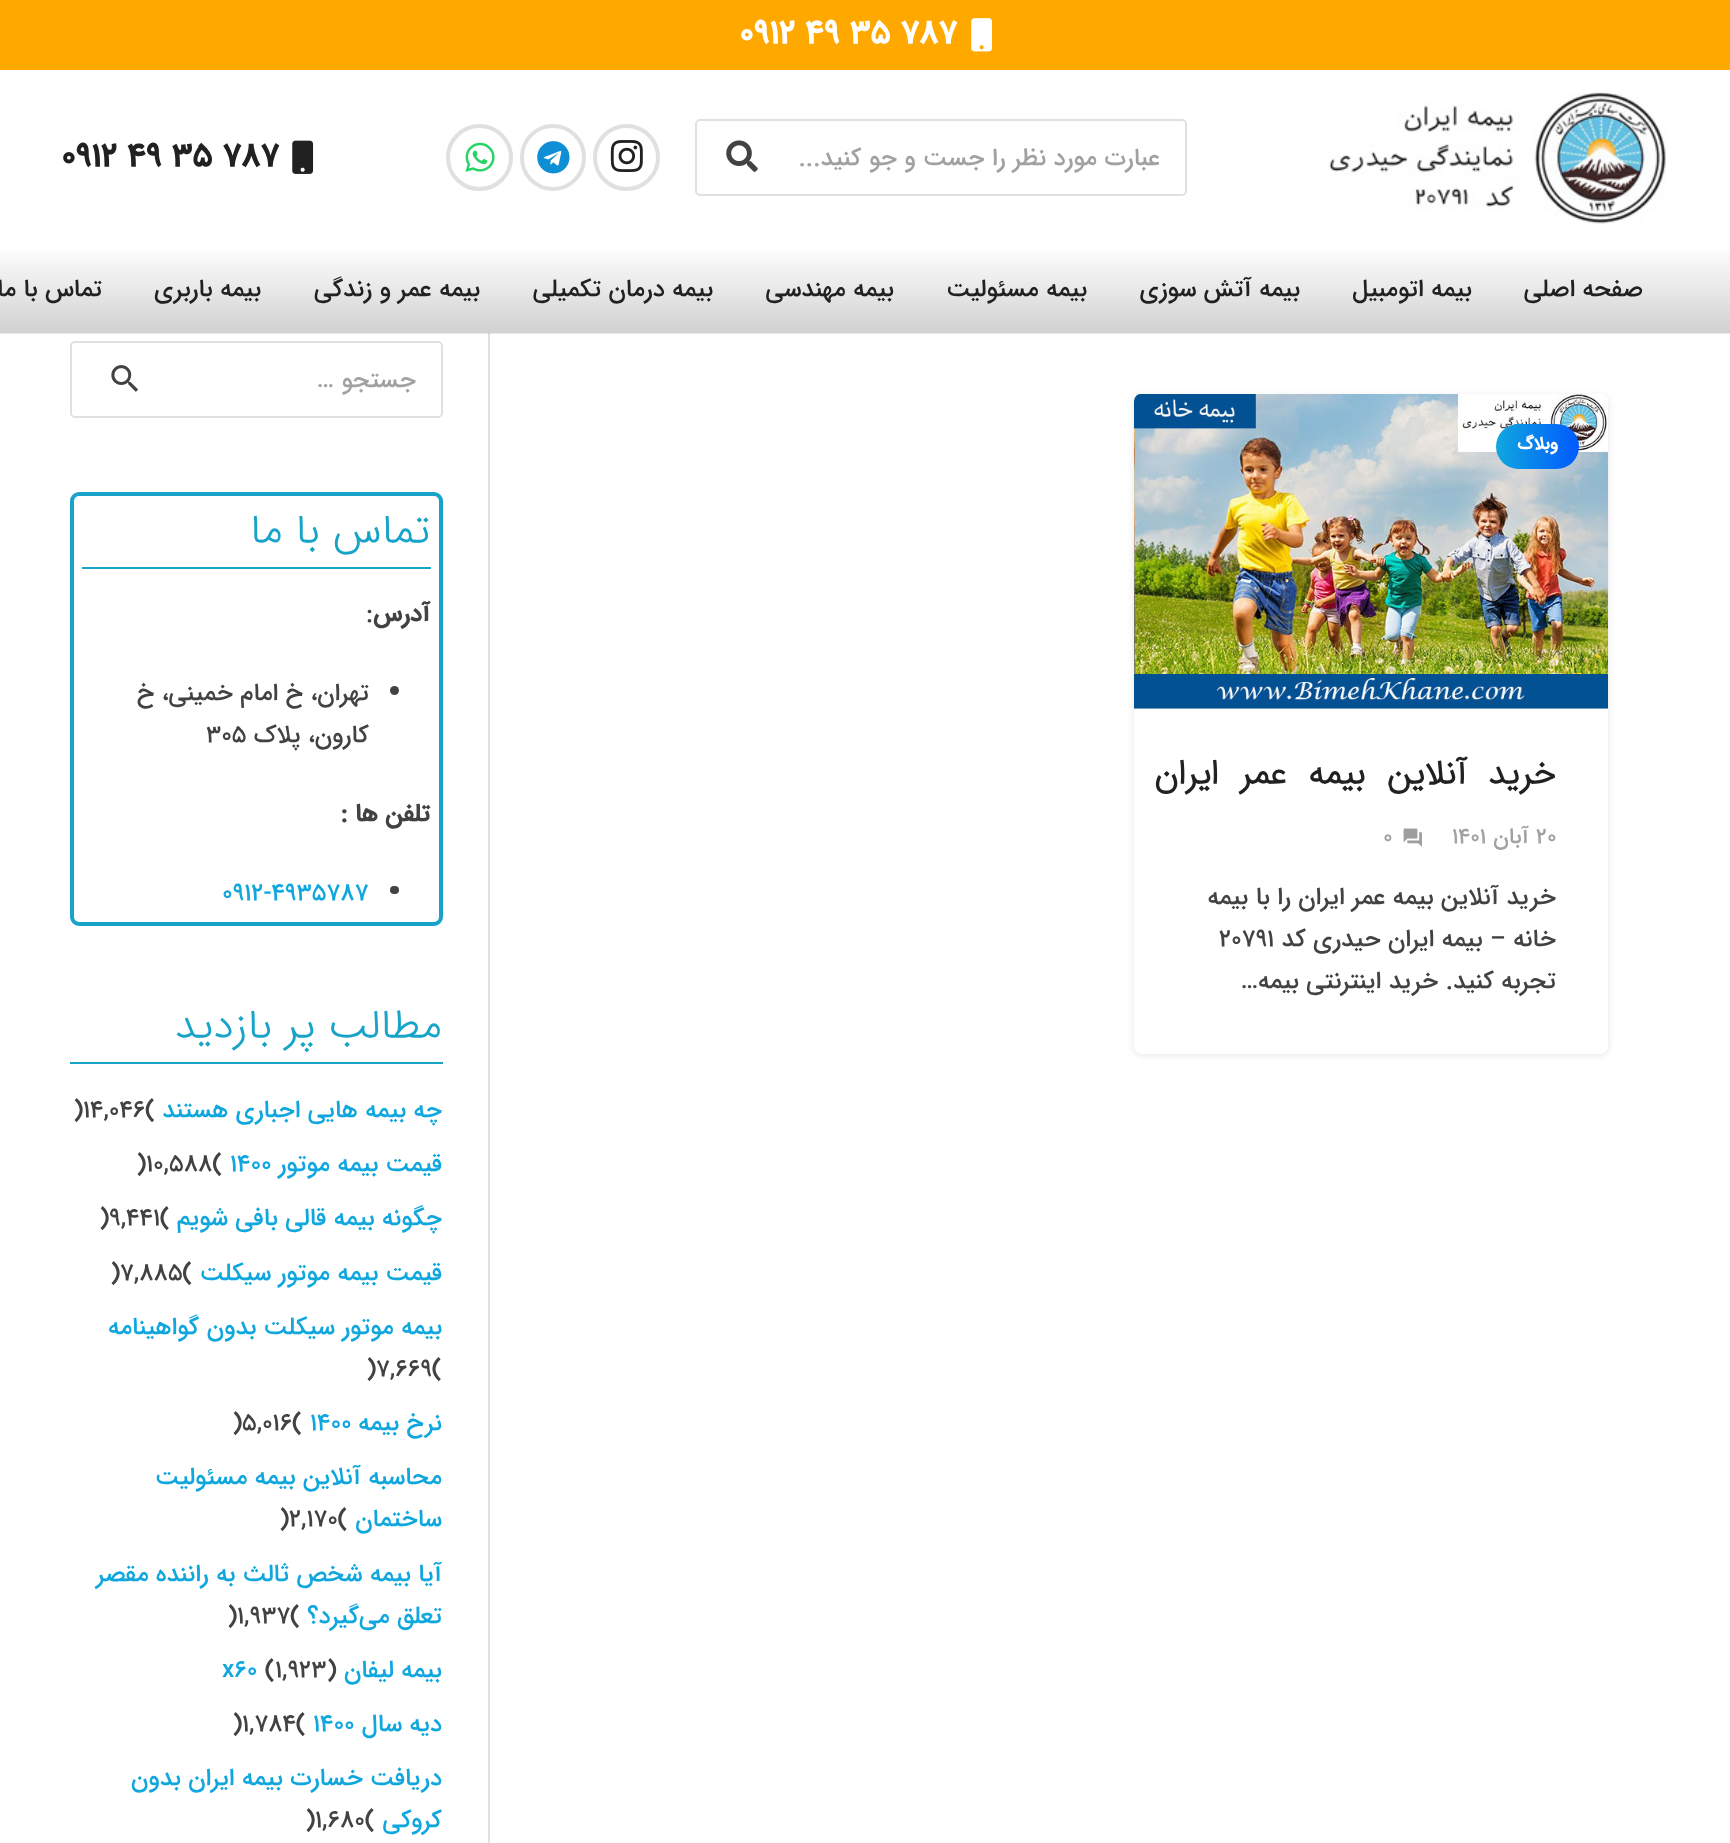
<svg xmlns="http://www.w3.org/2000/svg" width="1730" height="1843">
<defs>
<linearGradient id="g1" gradientUnits="userSpaceOnUse" x1="865" y1="245" x2="865" y2="333"><stop offset="0" stop-color="#fff"/><stop offset="1" stop-color="#d1d1d1"/></linearGradient>
<linearGradient id="g2" gradientUnits="userSpaceOnUse" x1="1496" y1="446" x2="1579" y2="446"><stop offset="0" stop-color="#10a7de"/><stop offset="1" stop-color="#0059ff"/></linearGradient>
</defs>
<rect width="100%" height="100%" fill="#fff"/>
<rect width="1730" height="70" fill="#ffa800"/>
<image x="971" y="18" width="22" height="34" href="media/1.png"/>
<text x="739" y="43" style="font-family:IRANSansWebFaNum;font-size:33.25px;font-weight:bold;fill:#fff">0912 49 35 787</text>
<image x="1329" y="92" width="337" height="132" href="media/2.png"/>
<rect x="696" y="120" width="490" height="75" rx="4" fill="none" stroke="#e0e0e0" stroke-width="2"/>
<text x="1160" y="165" style="font-family:IRANSansWebFaNum;font-size:24.5px;font-weight:500;direction:rtl;fill:#a1a1a1">عبارت مورد نظر را جست و جو کنید...</text>
<image x="726" y="140" width="32" height="32" href="media/3.png"/>
<circle cx="626.5" cy="157.5" r="31.5" fill="none" stroke="#e0e0e0" stroke-width="4"/>
<image x="610" y="140" width="33" height="32" href="media/4.png"/>
<rect x="522" y="126" width="62" height="63" rx="31" fill="none" stroke="#e0e0e0" stroke-width="4"/>
<image x="537" y="141" width="33" height="33" href="media/5.png"/>
<circle cx="479.5" cy="157.5" r="31.5" fill="none" stroke="#e0e0e0" stroke-width="4"/>
<image x="465" y="142" width="30" height="30" href="media/6.png"/>
<image x="292" y="140" width="22" height="34" href="media/7.png"/>
<text x="61" y="166" style="font-family:IRANSansWebFaNum;font-size:33.25px;font-weight:bold;fill:#212121">0912 49 35 787</text>
<rect x="488" y="333" width="2" height="1510" fill="#e0e0e0"/>
<path d="M0 332v2h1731v-87v85z" fill="#00000014"/>
<rect y="250" width="1730" height="83" fill="url(#g1)"/>
<text x="1643" y="296" style="font-family:IRANSansWebFaNum;font-size:24.5px;font-weight:500;direction:rtl;fill:#212121">صفحه اصلی</text>
<text x="1472" y="296" style="font-family:IRANSansWebFaNum;font-size:24.5px;font-weight:500;direction:rtl;fill:#212121">بیمه اتومبیل</text>
<text x="1300" y="296" style="font-family:IRANSansWebFaNum;font-size:24.5px;font-weight:500;direction:rtl;fill:#212121">بیمه آتش سوزی</text>
<text x="1087" y="296" style="font-family:IRANSansWebFaNum;font-size:24.5px;font-weight:500;direction:rtl;fill:#212121">بیمه مسئولیت</text>
<text x="894" y="296" style="font-family:IRANSansWebFaNum;font-size:24.5px;font-weight:500;direction:rtl;fill:#212121">بیمه مهندسی</text>
<text x="713" y="296" style="font-family:IRANSansWebFaNum;font-size:24.5px;font-weight:500;direction:rtl;fill:#212121">بیمه درمان تکمیلی</text>
<text x="480" y="296" style="font-family:IRANSansWebFaNum;font-size:24.5px;font-weight:500;direction:rtl;fill:#212121">بیمه عمر و زندگی</text>
<text x="261" y="296" style="font-family:IRANSansWebFaNum;font-size:24.5px;font-weight:500;direction:rtl;fill:#212121">بیمه باربری</text>
<text x="102" y="296" style="font-family:IRANSansWebFaNum;font-size:24.5px;font-weight:500;direction:rtl;fill:#212121">تماس با ما</text>
<rect x="1134" y="396" width="474" height="659" rx="7" fill="#0000001a" filter="blur(3.5px)"/>
<rect x="1134" y="394" width="474" height="660" rx="7" fill="#0000001a" filter="blur(0.5px)"/>
<rect x="1134" y="394" width="474" height="660" rx="7" fill="#fff"/>
<image x="1134" y="394" width="474" height="315" href="media/8.png"/>
<rect x="1496" y="424" width="83" height="45" rx="22.5" fill="url(#g2)"/>
<text x="1558" y="449" style="font-family:IRANSansWebFaNum;font-size:17.5px;font-weight:bold;direction:rtl;fill:#fff">وبلاگ</text>
<text x="1556" y="784" word-spacing="11" style="font-family:'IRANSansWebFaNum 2';font-size:34.25px;font-weight:bold;letter-spacing:-1.7px;direction:rtl;fill:#212121">خرید آنلاین بیمه عمر ایران</text>
<text x="1536" y="843" style="font-family:IRANSansWebFaNum;font-size:22px;font-weight:500;fill:#a1a1a1">۲۰</text>
<text x="1529" y="843" style="font-family:IRANSansWebFaNum;font-size:22px;font-weight:500;direction:rtl;fill:#a1a1a1">آبان</text>
<text x="1452" y="843" style="font-family:IRANSansWebFaNum;font-size:22px;font-weight:500;fill:#a1a1a1">۱۴۰۱</text>
<image x="1403" y="828" width="19" height="19" href="media/9.png"/>
<text x="1383" y="843" style="font-family:IRANSansWebFaNum;font-size:22px;font-weight:500;fill:#a1a1a1">0</text>
<text x="1556" y="904" style="font-family:IRANSansWebFaNum;font-size:24.5px;font-weight:500;direction:rtl;fill:#424242">خرید آنلاین بیمه عمر ایران را با بیمه</text>
<text x="1556" y="946" style="font-family:IRANSansWebFaNum;font-size:24.5px;font-weight:500;direction:rtl;fill:#424242">خانه – بیمه ایران حیدری کد</text>
<text x="1219" y="946" style="font-family:IRANSansWebFaNum;font-size:24.5px;font-weight:500;fill:#424242">۲۰۷۹۱</text>
<text x="1556" y="988" style="font-family:IRANSansWebFaNum;font-size:24.5px;font-weight:500;direction:rtl;fill:#424242">تجربه کنید. خرید اینترنتی بیمه…</text>
<rect x="71" y="342" width="371" height="75" rx="4" fill="none" stroke="#e0e0e0" stroke-width="2"/>
<text x="416" y="387" style="font-family:IRANSansWebFaNum;font-size:24.5px;font-weight:500;direction:rtl;fill:#a1a1a1">جستجو …</text>
<image x="111" y="365" width="27" height="27" href="media/10.png"/>
<rect x="72" y="494" width="369" height="430" rx="7" fill="none" stroke="#18a3c8" stroke-width="4"/>
<rect x="82" y="567" width="349" height="2" fill="#18a3c8"/>
<text x="430" y="543" style="font-family:IRANSansWebFaNum;font-size:42px;font-weight:300;direction:rtl;fill:#18a3c8">تماس با ما</text>
<text x="430" y="621" style="font-family:IRANSansWebFaNum;font-size:24.5px;font-weight:bold;direction:rtl;fill:#424242">آدرس</text>
<text x="366" y="621" style="font-family:IRANSansWebFaNum;font-size:24.5px;font-weight:500;fill:#424242">:</text>
<circle cx="394.5" cy="690.5" r="4.5" fill="#424242"/>
<text x="369" y="700" style="font-family:IRANSansWebFaNum;font-size:24.5px;font-weight:500;direction:rtl;fill:#424242">تهران، خ امام خمینی، خ</text>
<text x="369" y="742" style="font-family:IRANSansWebFaNum;font-size:24.5px;font-weight:500;direction:rtl;fill:#424242">کارون، پلاک</text>
<text x="206" y="742" style="font-family:IRANSansWebFaNum;font-size:24.5px;font-weight:500;fill:#424242">۳۰۵</text>
<text x="430" y="821" style="font-family:IRANSansWebFaNum;font-size:24.5px;font-weight:bold;direction:rtl;fill:#424242">تلفن ها :</text>
<rect x="390" y="886" width="9" height="8" rx="4" fill="#424242"/>
<text x="222" y="900" style="font-family:IRANSansWebFaNum;font-size:24.5px;font-weight:500;fill:#10a7de">0912-4935787</text>
<rect x="70" y="1062" width="373" height="2" fill="#18a3c8"/>
<text x="442" y="1038" style="font-family:IRANSansWebFaNum;font-size:42px;font-weight:300;direction:rtl;fill:#18a3c8">مطالب پر بازدید</text>
<text x="442" y="1117" style="font-family:IRANSansWebFaNum;font-size:24.5px;font-weight:500;direction:rtl;fill:#10a7de">چه بیمه هایی اجباری هستند</text>
<text x="83" y="1117" style="font-family:IRANSansWebFaNum;font-size:24.5px;font-weight:500;fill:#424242">14,046(</text>
<text x="73" y="1117" style="font-family:IRANSansWebFaNum;font-size:24.5px;font-weight:500;fill:#424242">)</text>
<text x="442" y="1171" style="font-family:IRANSansWebFaNum;font-size:24.5px;font-weight:500;direction:rtl;fill:#10a7de">قیمت بیمه موتور</text>
<text x="230" y="1171" style="font-family:IRANSansWebFaNum;font-size:24.5px;font-weight:500;fill:#10a7de">۱۴۰۰</text>
<text x="146" y="1171" style="font-family:IRANSansWebFaNum;font-size:24.5px;font-weight:500;fill:#424242">10,588(</text>
<text x="136" y="1171" style="font-family:IRANSansWebFaNum;font-size:24.5px;font-weight:500;fill:#424242">)</text>
<text x="442" y="1225" style="font-family:IRANSansWebFaNum;font-size:24.5px;font-weight:500;direction:rtl;fill:#10a7de">چگونه بیمه قالی بافی شویم</text>
<text x="109" y="1225" style="font-family:IRANSansWebFaNum;font-size:24.5px;font-weight:500;fill:#424242">9,441(</text>
<text x="99" y="1225" style="font-family:IRANSansWebFaNum;font-size:24.5px;font-weight:500;fill:#424242">)</text>
<text x="442" y="1280" style="font-family:IRANSansWebFaNum;font-size:24.5px;font-weight:500;direction:rtl;fill:#10a7de">قیمت بیمه موتور سیکلت</text>
<text x="120" y="1280" style="font-family:IRANSansWebFaNum;font-size:24.5px;font-weight:500;fill:#424242">7,885(</text>
<text x="110" y="1280" style="font-family:IRANSansWebFaNum;font-size:24.5px;font-weight:500;fill:#424242">)</text>
<text x="442" y="1334" style="font-family:IRANSansWebFaNum;font-size:24.5px;font-weight:500;direction:rtl;fill:#10a7de">بیمه موتور سیکلت بدون گواهینامه</text>
<text x="376" y="1376" style="font-family:IRANSansWebFaNum;font-size:24.5px;font-weight:500;fill:#424242">7,669(</text>
<text x="366" y="1376" style="font-family:IRANSansWebFaNum;font-size:24.5px;font-weight:500;fill:#424242">)</text>
<text x="442" y="1430" style="font-family:IRANSansWebFaNum;font-size:24.5px;font-weight:500;direction:rtl;fill:#10a7de">نرخ بیمه</text>
<text x="310" y="1430" style="font-family:IRANSansWebFaNum;font-size:24.5px;font-weight:500;fill:#10a7de">۱۴۰۰</text>
<text x="242" y="1430" style="font-family:IRANSansWebFaNum;font-size:24.5px;font-weight:500;fill:#424242">5,016(</text>
<text x="232" y="1430" style="font-family:IRANSansWebFaNum;font-size:24.5px;font-weight:500;fill:#424242">)</text>
<text x="442" y="1484" style="font-family:IRANSansWebFaNum;font-size:24.5px;font-weight:500;direction:rtl;fill:#10a7de">محاسبه آنلاین بیمه مسئولیت</text>
<text x="442" y="1526" style="font-family:IRANSansWebFaNum;font-size:24.5px;font-weight:500;direction:rtl;fill:#10a7de">ساختمان</text>
<text x="289" y="1526" style="font-family:IRANSansWebFaNum;font-size:24.5px;font-weight:500;fill:#424242">2,170(</text>
<text x="279" y="1526" style="font-family:IRANSansWebFaNum;font-size:24.5px;font-weight:500;fill:#424242">)</text>
<text x="442" y="1581" style="font-family:IRANSansWebFaNum;font-size:24.5px;font-weight:500;direction:rtl;fill:#10a7de">آیا بیمه شخص ثالث به راننده مقصر</text>
<text x="442" y="1623" style="font-family:IRANSansWebFaNum;font-size:24.5px;font-weight:500;direction:rtl;fill:#10a7de">تعلق می‌گیرد؟</text>
<text x="237" y="1623" style="font-family:IRANSansWebFaNum;font-size:24.5px;font-weight:500;fill:#424242">1,937(</text>
<text x="227" y="1623" style="font-family:IRANSansWebFaNum;font-size:24.5px;font-weight:500;fill:#424242">)</text>
<text x="442" y="1677" style="font-family:IRANSansWebFaNum;font-size:24.5px;font-weight:500;direction:rtl;fill:#10a7de">بیمه لیفان</text>
<text x="265" y="1677" style="font-family:IRANSansWebFaNum;font-size:24.5px;font-weight:500;fill:#424242">(1,923)</text>
<text x="222" y="1677" style="font-family:IRANSansWebFaNum;font-size:24.5px;font-weight:500;fill:#10a7de">x60</text>
<text x="442" y="1731" style="font-family:IRANSansWebFaNum;font-size:24.5px;font-weight:500;direction:rtl;fill:#10a7de">دیه سال</text>
<text x="313" y="1731" style="font-family:IRANSansWebFaNum;font-size:24.5px;font-weight:500;fill:#10a7de">۱۴۰۰</text>
<text x="242" y="1731" style="font-family:IRANSansWebFaNum;font-size:24.5px;font-weight:500;fill:#424242">1,784(</text>
<text x="232" y="1731" style="font-family:IRANSansWebFaNum;font-size:24.5px;font-weight:500;fill:#424242">)</text>
<text x="442" y="1785" style="font-family:IRANSansWebFaNum;font-size:24.5px;font-weight:500;direction:rtl;fill:#10a7de">دریافت خسارت بیمه ایران بدون</text>
<text x="442" y="1827" style="font-family:IRANSansWebFaNum;font-size:24.5px;font-weight:500;direction:rtl;fill:#10a7de">کروکی</text>
<text x="315" y="1827" style="font-family:IRANSansWebFaNum;font-size:24.5px;font-weight:500;fill:#424242">1,680(</text>
<text x="305" y="1827" style="font-family:IRANSansWebFaNum;font-size:24.5px;font-weight:500;fill:#424242">)</text>
</svg>
